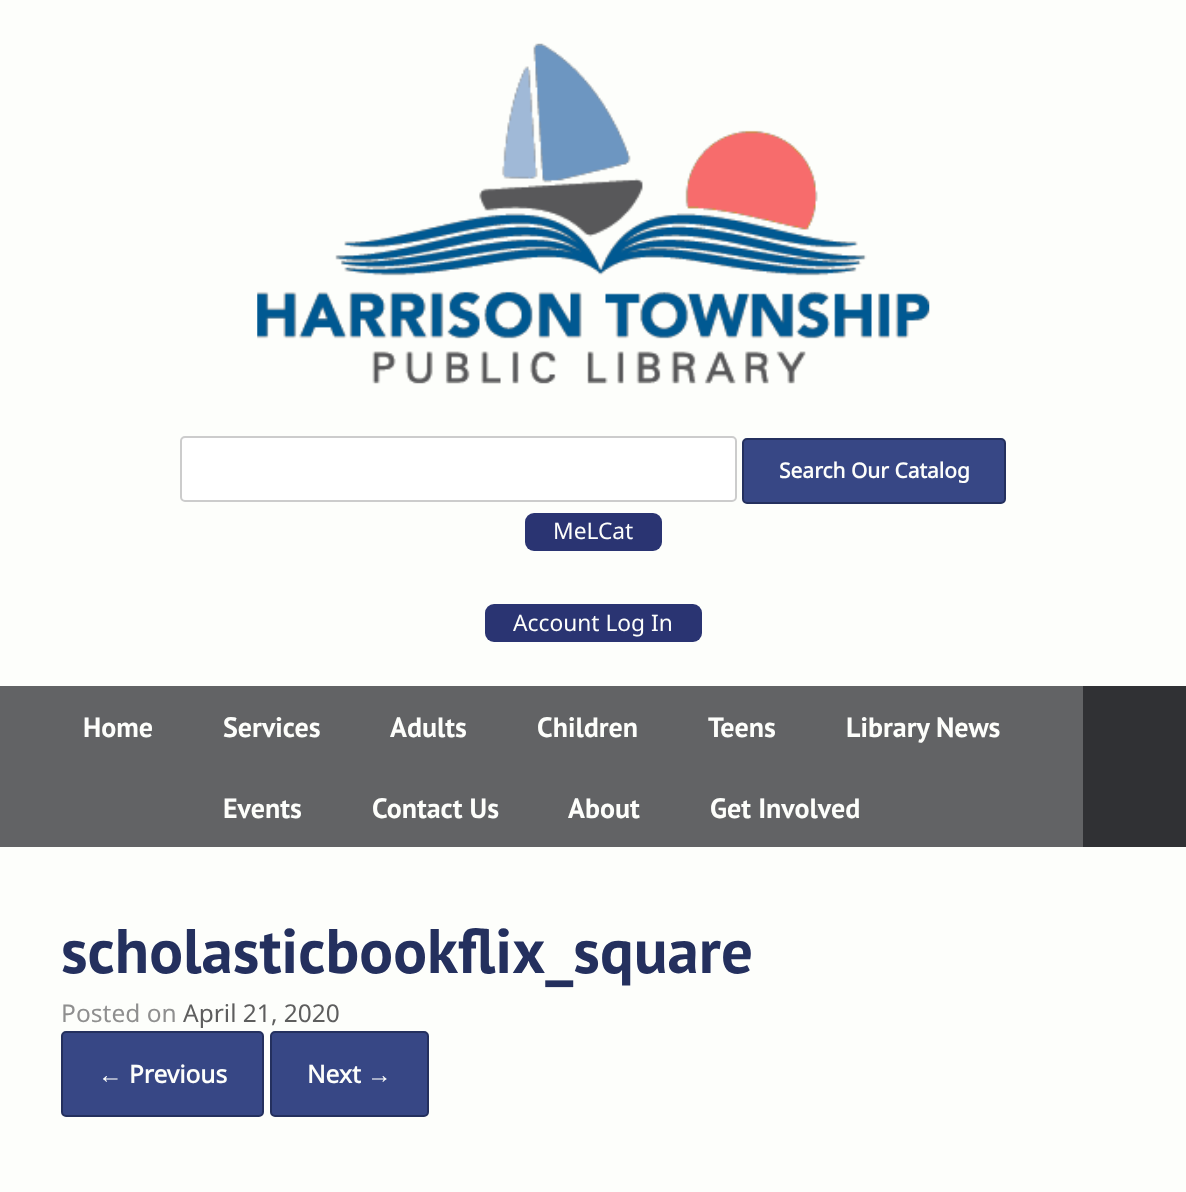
<!DOCTYPE html>
<meta charset="utf-8">
<style>body { margin: 0 } canvas { display: block }</style>
<canvas id="canvas" width="1186" height="1192"></canvas>
<script type="module">
  const canvas = document.getElementById("canvas");
  const ctx = canvas.getContext("2d");
  ctx.miterLimit = 4;
  ctx.fontKerning = "normal";
  async function loadImage(src) {
    const img = new Image();
    img.src = src;
    await img.decode();
    return img;
  }

  ctx.fillStyle = "#fdfefb";
  ctx.fillRect(0, 0, 1186, 1192);
  ctx.drawImage(await loadImage("img1.png"), 257, 43, 673, 341);
  ctx.fillStyle = "#ffffff";
  ctx.beginPath();
  ctx.roundRect(181, 437, 555, 64, 4);
  ctx.fill();
  ctx.strokeStyle = "#cccccc";
  ctx.lineWidth = 2;
  ctx.stroke();
  ctx.fillStyle = "#374785";
  ctx.beginPath();
  ctx.roundRect(743, 439, 262, 64, 4);
  ctx.fill();
  ctx.strokeStyle = "#24305e";
  ctx.stroke();
  ctx.font = "bold 21px Noto Sans";
  ctx.fillStyle = "#fdfefb";
  ctx.fillText("Search Our Catalog", 779, 478);
  ctx.fillStyle = "#2a3472";
  ctx.beginPath();
  ctx.roundRect(525, 513, 137, 38, 9);
  ctx.fill();
  ctx.font = "22.75px Noto Sans";
  ctx.fillStyle = "#fdfefb";
  ctx.fillText("MeLCat", 553, 539);
  ctx.fillStyle = "#2a3472";
  ctx.beginPath();
  ctx.roundRect(485, 604, 217, 38, 9);
  ctx.fill();
  ctx.fillStyle = "#fdfefb";
  ctx.fillText("Account Log In", 513, 631);
  ctx.fillStyle = "#626365";
  ctx.fillRect(0, 686, 1083, 161);
  ctx.font = "bold 28px PT Sans";
  ctx.fillStyle = "#fdfefb";
  ctx.fillText("Home", 83, 737);
  ctx.fillText("Services", 223, 737);
  ctx.fillText("Adults", 390, 737);
  ctx.fillText("Children", 537, 737);
  ctx.fillText("Teens", 708, 737);
  ctx.fillText("Library News", 846, 737);
  ctx.fillText("Events", 223, 818);
  ctx.fillText("Contact Us", 372, 818);
  ctx.fillText("About", 568, 818);
  ctx.fillText("Get Involved", 710, 818);
  ctx.fillStyle = "#303134";
  ctx.fillRect(1083, 686, 103, 161);
  ctx.font = "bold 63px PT Sans";
  ctx.fillStyle = "#24305e";
  ctx.fillText("scholasticbookflix_square", 61, 973);
  ctx.font = "24.5px 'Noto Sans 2'";
  ctx.fillStyle = "#8f8f8f";
  ctx.fillText("P", 61, 1022);
  ctx.font = "24.5px Noto Sans";
  ctx.fillText("osted on", 76, 1022);
  ctx.fillStyle = "#5e5e5e";
  ctx.fillText("April 21, 2020", 183, 1022);
  ctx.fillStyle = "#374785";
  ctx.beginPath();
  ctx.roundRect(62, 1032, 201, 84, 4);
  ctx.fill();
  ctx.stroke();
  ctx.font = "bold 24.5px Liberation Serif";
  ctx.fillStyle = "#fdfefb";
  ctx.fillText("←", 98, 1083);
  ctx.font = "bold 24.5px Noto Sans";
  ctx.fillText("Previous", 129, 1083);
  ctx.fillStyle = "#374785";
  ctx.beginPath();
  ctx.roundRect(271, 1032, 157, 84, 4);
  ctx.fill();
  ctx.stroke();
  ctx.fillStyle = "#fdfefb";
  ctx.fillText("Next", 307, 1083);
  ctx.font = "bold 24.5px Liberation Serif";
  ctx.fillText("→", 367, 1083);
</script>
